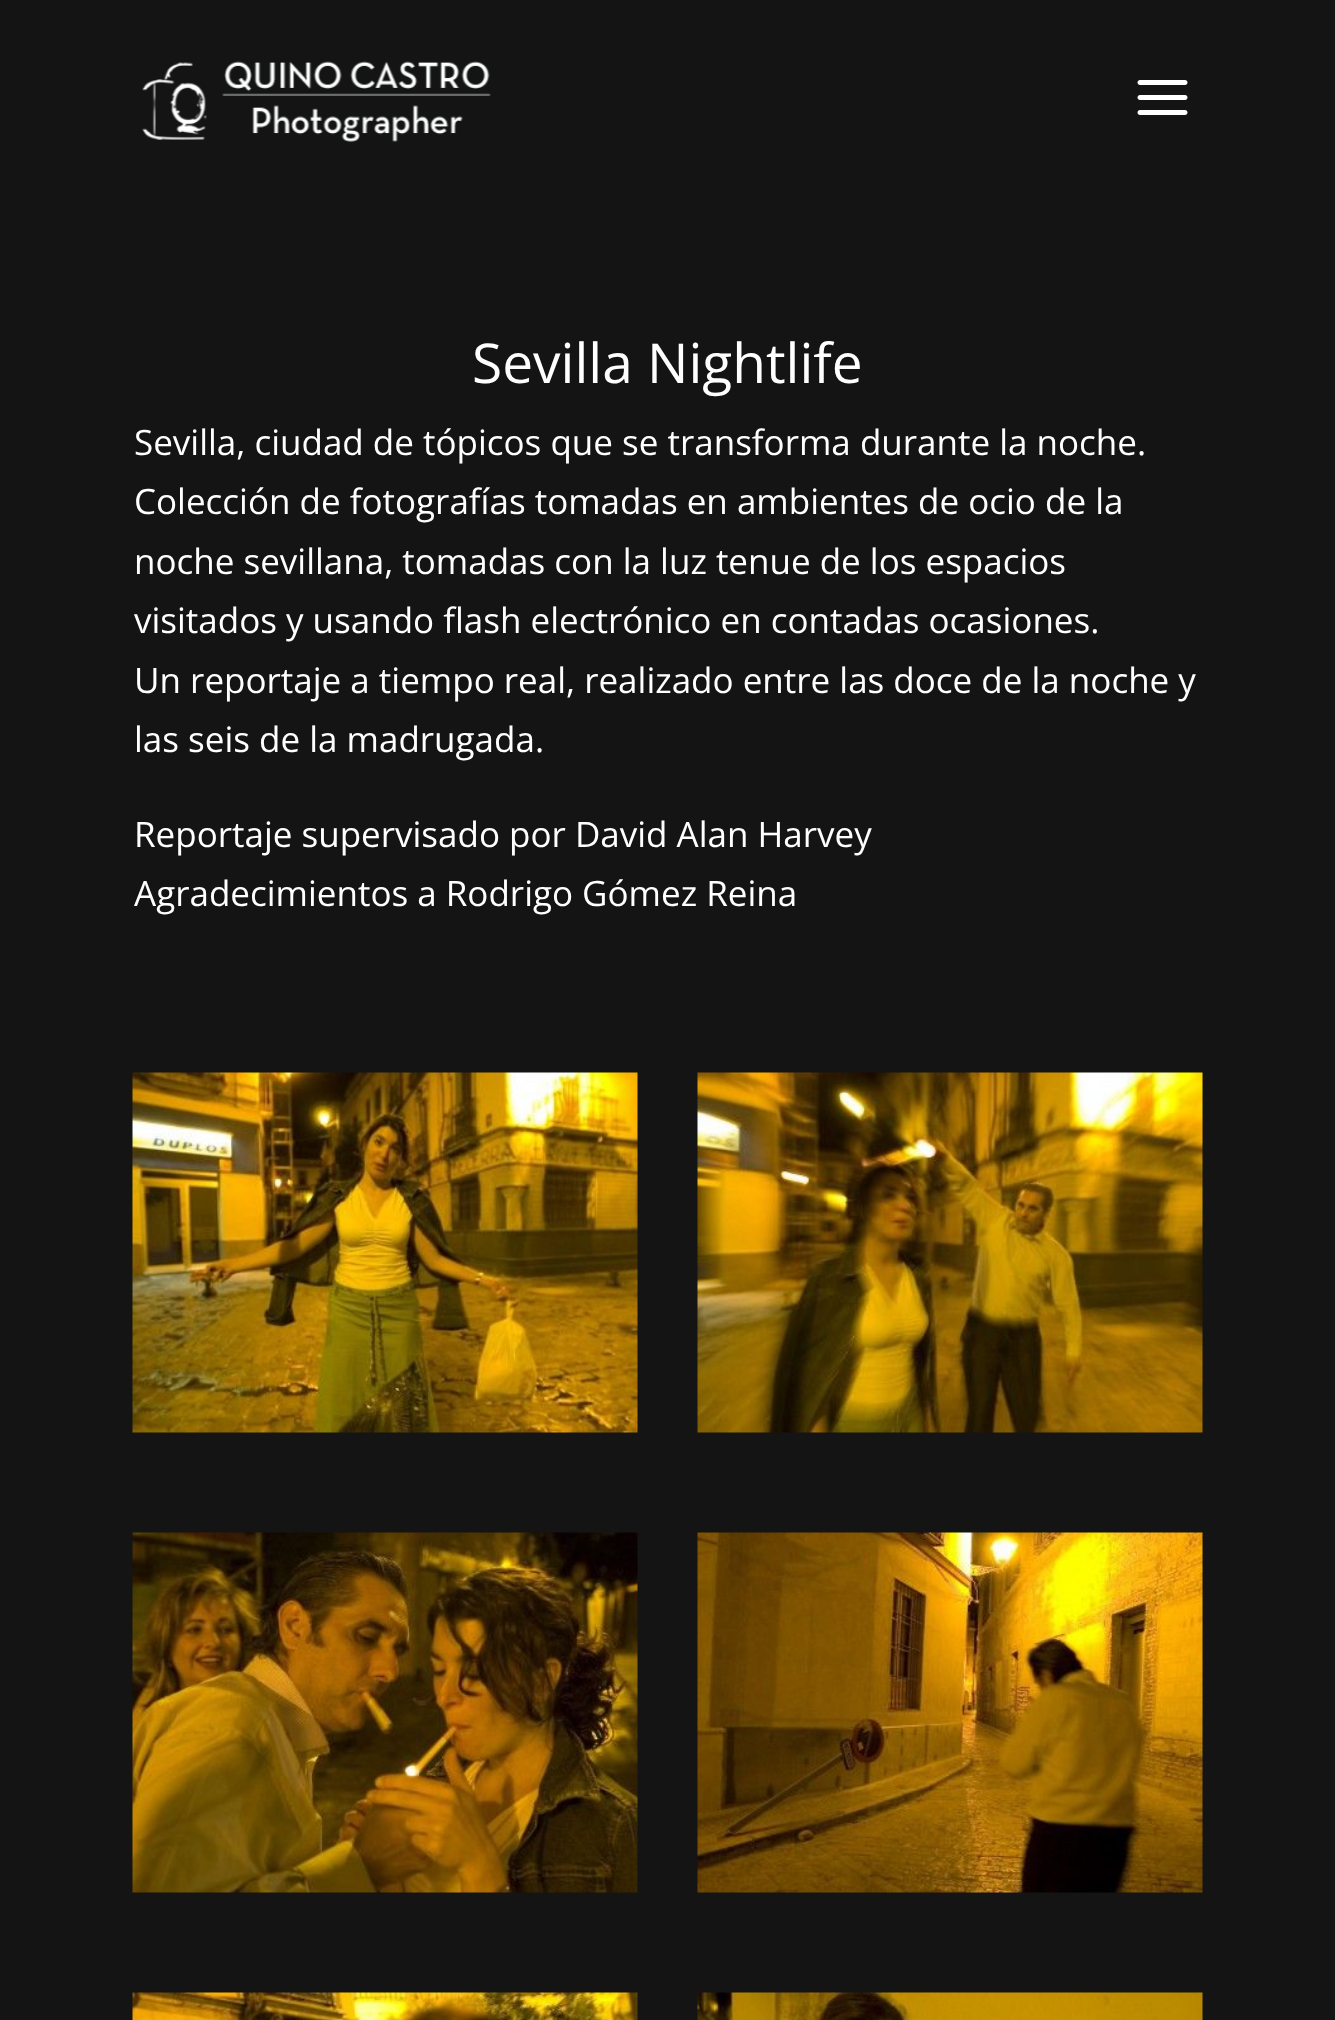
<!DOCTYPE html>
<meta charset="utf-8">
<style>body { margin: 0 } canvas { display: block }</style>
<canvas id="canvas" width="1335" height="2020"></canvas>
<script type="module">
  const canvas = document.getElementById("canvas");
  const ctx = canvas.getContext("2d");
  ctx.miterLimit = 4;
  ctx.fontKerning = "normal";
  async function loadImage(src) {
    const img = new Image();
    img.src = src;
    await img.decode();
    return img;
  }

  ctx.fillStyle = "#141414";
  ctx.fillRect(0, 0, 1335, 2020);
  ctx.drawImage(await loadImage("img1.png"), 142, 61, 349, 81);
  ctx.drawImage(await loadImage("img2.png"), 1137, 80, 51, 35);
  ctx.font = "55px Open Sans";
  ctx.fillStyle = "#ffffff";
  ctx.fillText("Sevilla Nightlife", 472, 383);
  ctx.font = "35px Open Sans";
  ctx.fillText("Sevilla, ciudad de tópicos que se transforma durante la noche.", 134, 455);
  ctx.fillText("Colección de fotografías tomadas en ambientes de ocio de la", 134, 514);
  ctx.fillText("noche sevillana, tomadas con la luz tenue de los espacios", 134, 574);
  ctx.fillText("visitados y usando flash electrónico en contadas ocasiones.", 134, 633);
  ctx.fillText("Un reportaje a tiempo real, realizado entre las doce de la noche y", 134, 693);
  ctx.fillText("las seis de la madrugada.", 134, 752);
  ctx.fillText("Reportaje supervisado por David Alan Harvey", 134, 847);
  ctx.fillText("Agradecimientos a Rodrigo Gómez Reina", 134, 906);
  ctx.drawImage(await loadImage("img3.png"), 132, 1072, 506, 361);
  ctx.drawImage(await loadImage("img4.png"), 697, 1072, 506, 361);
  ctx.drawImage(await loadImage("img5.png"), 132, 1532, 506, 361);
  ctx.drawImage(await loadImage("img6.png"), 697, 1532, 506, 361);
  ctx.drawImage(await loadImage("img7.png"), 132, 1992, 506, 28);
  ctx.drawImage(await loadImage("img8.png"), 697, 1992, 506, 28);
</script>
